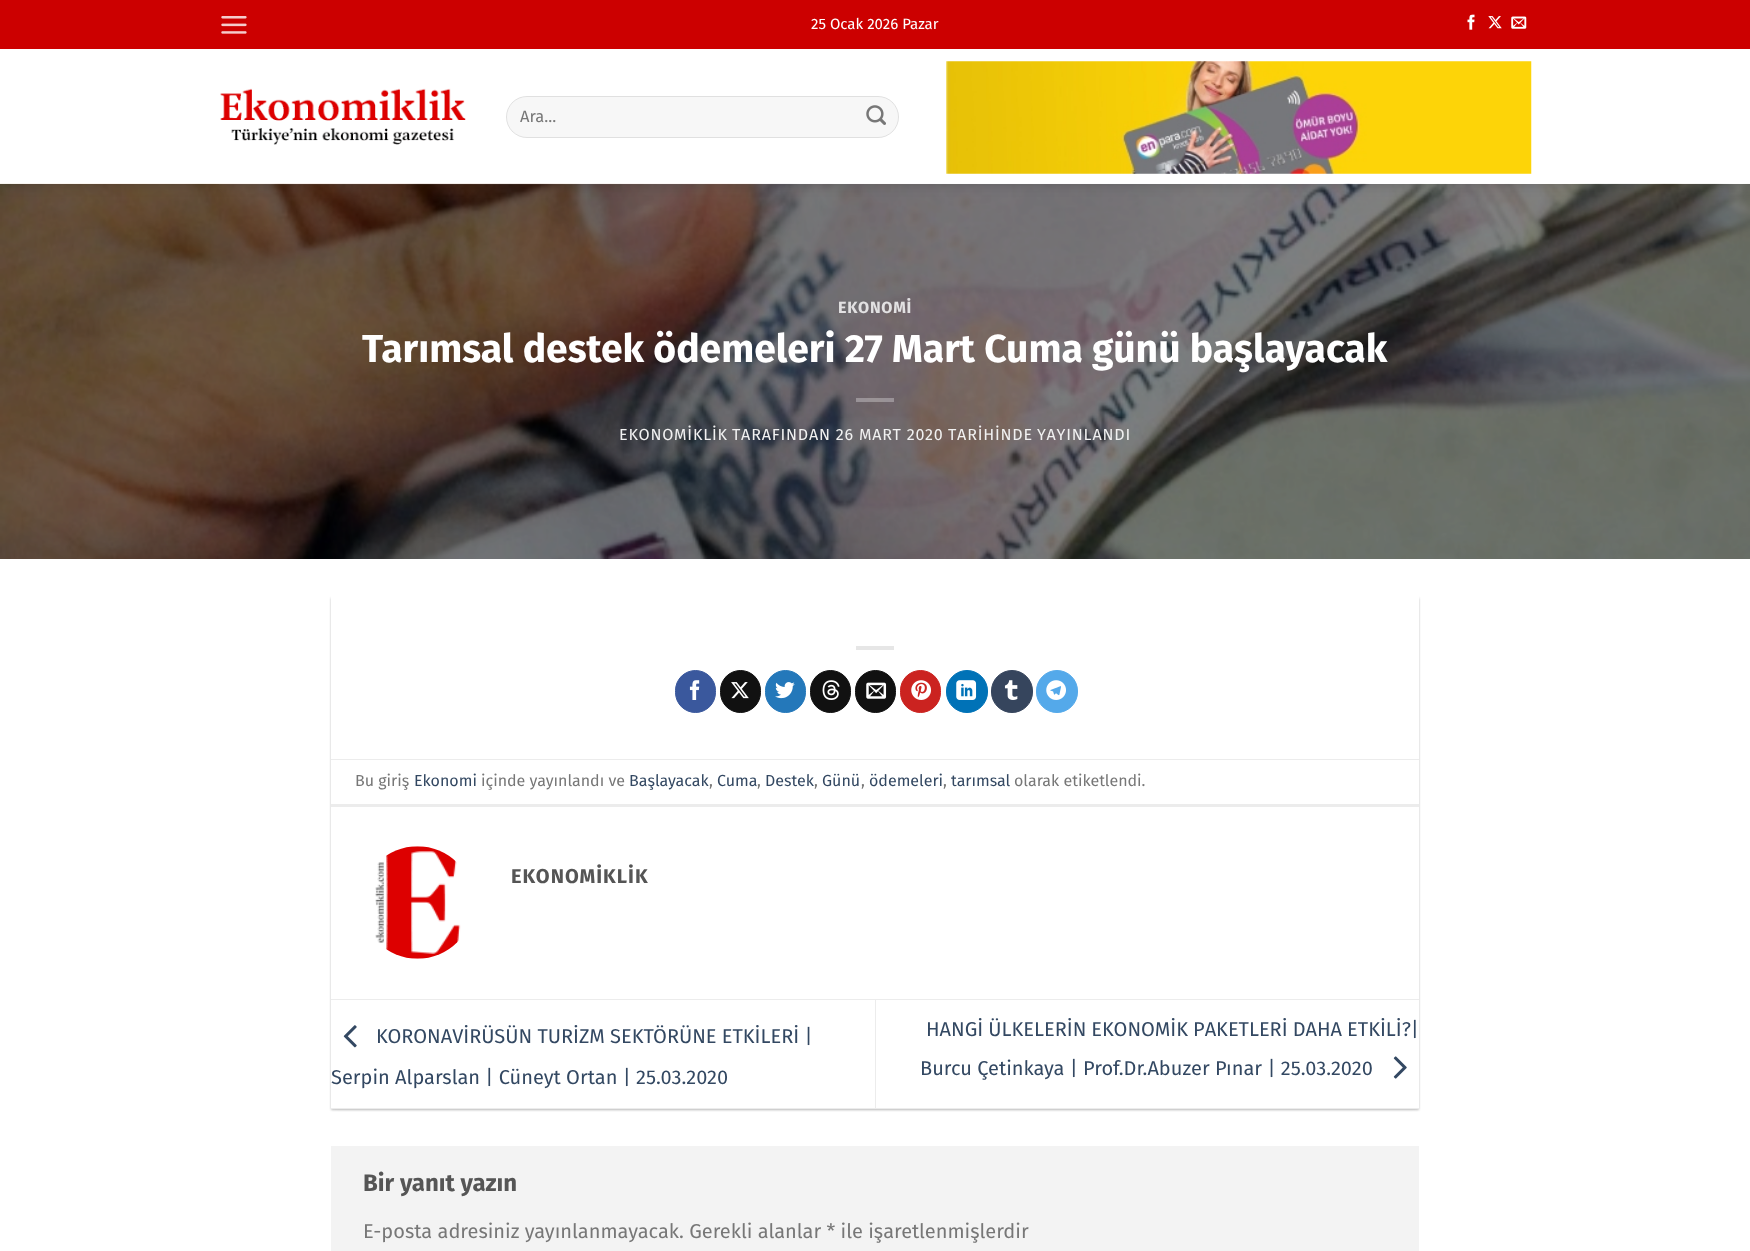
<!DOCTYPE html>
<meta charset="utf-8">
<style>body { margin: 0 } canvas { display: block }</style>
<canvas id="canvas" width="1750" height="1251"></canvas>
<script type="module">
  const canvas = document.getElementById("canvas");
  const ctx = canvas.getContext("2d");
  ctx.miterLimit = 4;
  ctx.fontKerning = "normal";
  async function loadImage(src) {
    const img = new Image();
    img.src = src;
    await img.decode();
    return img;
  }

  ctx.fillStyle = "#ffffff";
  ctx.fillRect(0, 0, 1750, 1251);
  ctx.drawImage(await loadImage("img8.png"), 0, 183, 1750, 376);
  ctx.save();
  ctx.beginPath();
  ctx.moveTo(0, 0);
  ctx.lineTo(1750, 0);
  ctx.lineTo(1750, 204);
  ctx.lineTo(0, 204);
  ctx.closePath();
  ctx.moveTo(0, 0);
  ctx.lineTo(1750, 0);
  ctx.lineTo(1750, 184);
  ctx.lineTo(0, 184);
  ctx.closePath();
  ctx.clip("evenodd");
  ctx.fillStyle = "rgba(0, 0, 0, 0.15)";
  ctx.filter = "blur(6px)";
  ctx.beginPath();
  ctx.rect(1, 1, 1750, 184);
  ctx.fill();
  ctx.filter = "none";
  ctx.restore();
  ctx.fillStyle = "#cc0000";
  ctx.fillRect(0, 0, 1750, 49);
  ctx.drawImage(await loadImage("img1.png"), 221, 16, 26, 18);
  ctx.font = "15px Fira Sans";
  ctx.fillStyle = "#ffffff";
  ctx.fillText("25 Ocak 2026 Pazar", 811, 29);
  ctx.drawImage(await loadImage("img2.png"), 1467, 14, 8, 16);
  ctx.drawImage(await loadImage("img3.png"), 1488, 16, 14, 13);
  ctx.drawImage(await loadImage("img4.png"), 1511, 16, 16, 13);
  ctx.drawImage(await loadImage("img5.png"), 220, 88, 246, 57);
  ctx.fillStyle = "#f7f7f7";
  ctx.beginPath();
  ctx.roundRect(506, 96, 393, 42, 21);
  ctx.fill();
  ctx.beginPath();
  ctx.roundRect(506.5, 96.5, 392, 41, 20.5);
  ctx.strokeStyle = "rgba(0, 0, 0, 0.09)";
  ctx.stroke();
  ctx.font = "16.5px Fira Sans";
  ctx.fillStyle = "#777777";
  ctx.fillText("Ara...", 520, 122);
  ctx.drawImage(await loadImage("img6.png"), 866, 105, 20, 20);
  ctx.drawImage(await loadImage("img7.png"), 946, 61, 586, 113);
  ctx.fillStyle = "rgba(119, 119, 119, 0.1)";
  ctx.fillRect(219, 184, 1201, 1);
  ctx.fillStyle = "rgba(255, 255, 255, 0.9)";
  ctx.fillRect(0, 183, 1750, 1);
  ctx.letterSpacing = "0.8px";
  ctx.font = "bold 16.1px Fira Sans";
  ctx.fillStyle = "#e2e1e2";
  ctx.fillText("EKONOMİ", 838, 313);
  ctx.letterSpacing = "0px";
  ctx.font = "bold 39.1px Fira Sans";
  ctx.fillStyle = "#ffffff";
  ctx.fillText("Tarımsal destek ödemeleri 27 Mart Cuma günü başlayacak", 362, 362);
  ctx.fillStyle = "rgba(255, 255, 255, 0.3)";
  ctx.fillRect(856, 398, 38, 4);
  ctx.letterSpacing = "0.8px";
  ctx.font = "16.1px Fira Sans";
  ctx.fillStyle = "#f1f1f1";
  ctx.fillText("EKONOMİKLİK", 619, 440);
  ctx.fillText("TARAFINDAN 26 MART 2020", 732, 440);
  ctx.wordSpacing = "-1px";
  ctx.fillText("TARİHİNDE YAYINLANDI", 948, 440);
  ctx.fillStyle = "rgba(0, 0, 0, 0.24)";
  ctx.filter = "blur(1px)";
  ctx.beginPath();
  ctx.rect(331, 598, 1088, 512);
  ctx.fill();
  ctx.filter = "none";
  ctx.fillStyle = "rgba(0, 0, 0, 0.12)";
  ctx.filter = "blur(2px)";
  ctx.beginPath();
  ctx.rect(334, 600, 1082, 508);
  ctx.fill();
  ctx.filter = "none";
  ctx.fillStyle = "#ffffff";
  ctx.fillRect(331, 596, 1088, 512);
  ctx.fillStyle = "#e6e6e6";
  ctx.fillRect(856, 646, 38, 4);
  ctx.fillStyle = "#3a589d";
  ctx.beginPath();
  ctx.roundRect(675.5, 670.5, 40, 42, 20);
  ctx.fill();
  ctx.strokeStyle = "#3a589d";
  ctx.stroke();
  ctx.drawImage(await loadImage("img9.png"), 689, 680, 11, 20);
  ctx.fillStyle = "#111111";
  ctx.beginPath();
  ctx.roundRect(720.5, 670.5, 40, 42, 20);
  ctx.fill();
  ctx.strokeStyle = "#111111";
  ctx.stroke();
  ctx.drawImage(await loadImage("img10.png"), 731, 682, 18, 17);
  ctx.fillStyle = "#2478ba";
  ctx.beginPath();
  ctx.roundRect(765.5, 670.5, 40, 42, 20);
  ctx.fill();
  ctx.strokeStyle = "#2478ba";
  ctx.stroke();
  ctx.drawImage(await loadImage("img11.png"), 775, 682, 20, 17);
  ctx.fillStyle = "#111111";
  ctx.beginPath();
  ctx.roundRect(810.5, 670.5, 40, 42, 20);
  ctx.fill();
  ctx.strokeStyle = "#111111";
  ctx.stroke();
  ctx.drawImage(await loadImage("img12.png"), 822, 680, 18, 20);
  ctx.beginPath();
  ctx.roundRect(855.5, 670.5, 40, 42, 20);
  ctx.fill();
  ctx.stroke();
  ctx.drawImage(await loadImage("img13.png"), 866, 682, 21, 17);
  ctx.fillStyle = "#cb2320";
  ctx.beginPath();
  ctx.roundRect(900.5, 670.5, 40, 42, 20);
  ctx.fill();
  ctx.strokeStyle = "#cb2320";
  ctx.stroke();
  ctx.drawImage(await loadImage("img14.png"), 911, 680, 20, 20);
  ctx.fillStyle = "#0072b7";
  ctx.beginPath();
  ctx.roundRect(946.5, 670.5, 41, 42, 20.5);
  ctx.fill();
  ctx.strokeStyle = "#0072b7";
  ctx.stroke();
  ctx.drawImage(await loadImage("img15.png"), 956, 680, 21, 20);
  ctx.fillStyle = "#36455d";
  ctx.beginPath();
  ctx.roundRect(991.5, 670.5, 41, 42, 20.5);
  ctx.fill();
  ctx.strokeStyle = "#36455d";
  ctx.stroke();
  ctx.drawImage(await loadImage("img16.png"), 1004, 680, 14, 20);
  ctx.fillStyle = "#54a9ea";
  ctx.beginPath();
  ctx.roundRect(1036.5, 670.5, 41, 42, 20.5);
  ctx.fill();
  ctx.strokeStyle = "#54a9ea";
  ctx.stroke();
  ctx.drawImage(await loadImage("img17.png"), 1046, 680, 20, 20);
  ctx.fillStyle = "#ececec";
  ctx.fillRect(331, 759, 1088, 1);
  ctx.fillRect(331, 804, 1088, 3);
  ctx.letterSpacing = "0px";
  ctx.wordSpacing = "0px";
  ctx.font = "16px Fira Sans";
  ctx.fillStyle = "#777777";
  ctx.fillText("Bu giriş", 355, 786);
  ctx.fillStyle = "#334862";
  ctx.fillText("Ekonomi", 414, 786);
  ctx.fillStyle = "#777777";
  ctx.fillText("içinde yayınlandı ve", 481, 786);
  ctx.fillStyle = "#334862";
  ctx.fillText("Başlayacak", 629, 786);
  ctx.fillStyle = "#777777";
  ctx.fillText(",", 709, 786);
  ctx.fillStyle = "#334862";
  ctx.fillText("Cuma", 717, 786);
  ctx.fillStyle = "#777777";
  ctx.fillText(",", 757, 786);
  ctx.fillStyle = "#334862";
  ctx.fillText("Destek", 765, 786);
  ctx.fillStyle = "#777777";
  ctx.fillText(",", 814, 786);
  ctx.fillStyle = "#334862";
  ctx.fillText("Günü", 822, 786);
  ctx.fillStyle = "#777777";
  ctx.fillText(",", 861, 786);
  ctx.fillStyle = "#334862";
  ctx.fillText("ödemeleri", 869, 786);
  ctx.fillStyle = "#777777";
  ctx.fillText(",", 943, 786);
  ctx.fillStyle = "#334862";
  ctx.fillText("tarımsal", 951, 786);
  ctx.fillStyle = "#777777";
  ctx.fillText("olarak etiketlendi.", 1014, 786);
  ctx.drawImage(await loadImage("img18.png"), 375, 846, 86, 113);
  ctx.letterSpacing = "1px";
  ctx.font = "bold 20px Fira Sans";
  ctx.fillStyle = "#555555";
  ctx.fillText("EKONOMİKLİK", 511, 883);
  ctx.fillStyle = "#ececec";
  ctx.fillRect(331, 999, 1088, 1);
  ctx.fillRect(331, 1108, 1088, 1);
  ctx.drawImage(await loadImage("img19.png"), 343, 1025, 14, 23);
  ctx.letterSpacing = "0px";
  ctx.font = "20px Fira Sans";
  ctx.fillStyle = "#334862";
  ctx.fillText("KORONAVİRÜSÜN TURİZM SEKTÖRÜNE ETKİLERİ |", 376, 1043);
  ctx.fillText("Serpin Alparslan | Cüneyt Ortan | 25.03.2020", 331, 1084);
  ctx.fillStyle = "#ececec";
  ctx.fillRect(875, 1000, 1, 108);
  ctx.wordSpacing = "-0.25px";
  ctx.fillStyle = "#334862";
  ctx.fillText("HANGİ ÜLKELERİN EKONOMİK PAKETLERİ DAHA ETKİLİ?|", 926, 1036);
  ctx.wordSpacing = "0px";
  ctx.fillText("Burcu Çetinkaya | Prof.Dr.Abuzer Pınar | 25.03.2020", 920, 1075);
  ctx.drawImage(await loadImage("img20.png"), 1393, 1056, 14, 23);
  ctx.fillStyle = "#f3f3f3";
  ctx.fillRect(331, 1146, 1088, 105);
  ctx.font = "bold 24px Fira Sans";
  ctx.fillStyle = "#555555";
  ctx.fillText("Bir yanıt yazın", 363, 1191);
  ctx.font = "20px Fira Sans";
  ctx.fillStyle = "#777777";
  ctx.fillText("E-posta adresiniz yayınlanmayacak. Gerekli alanlar * ile işaretlenmişlerdir", 363, 1238);
</script>
